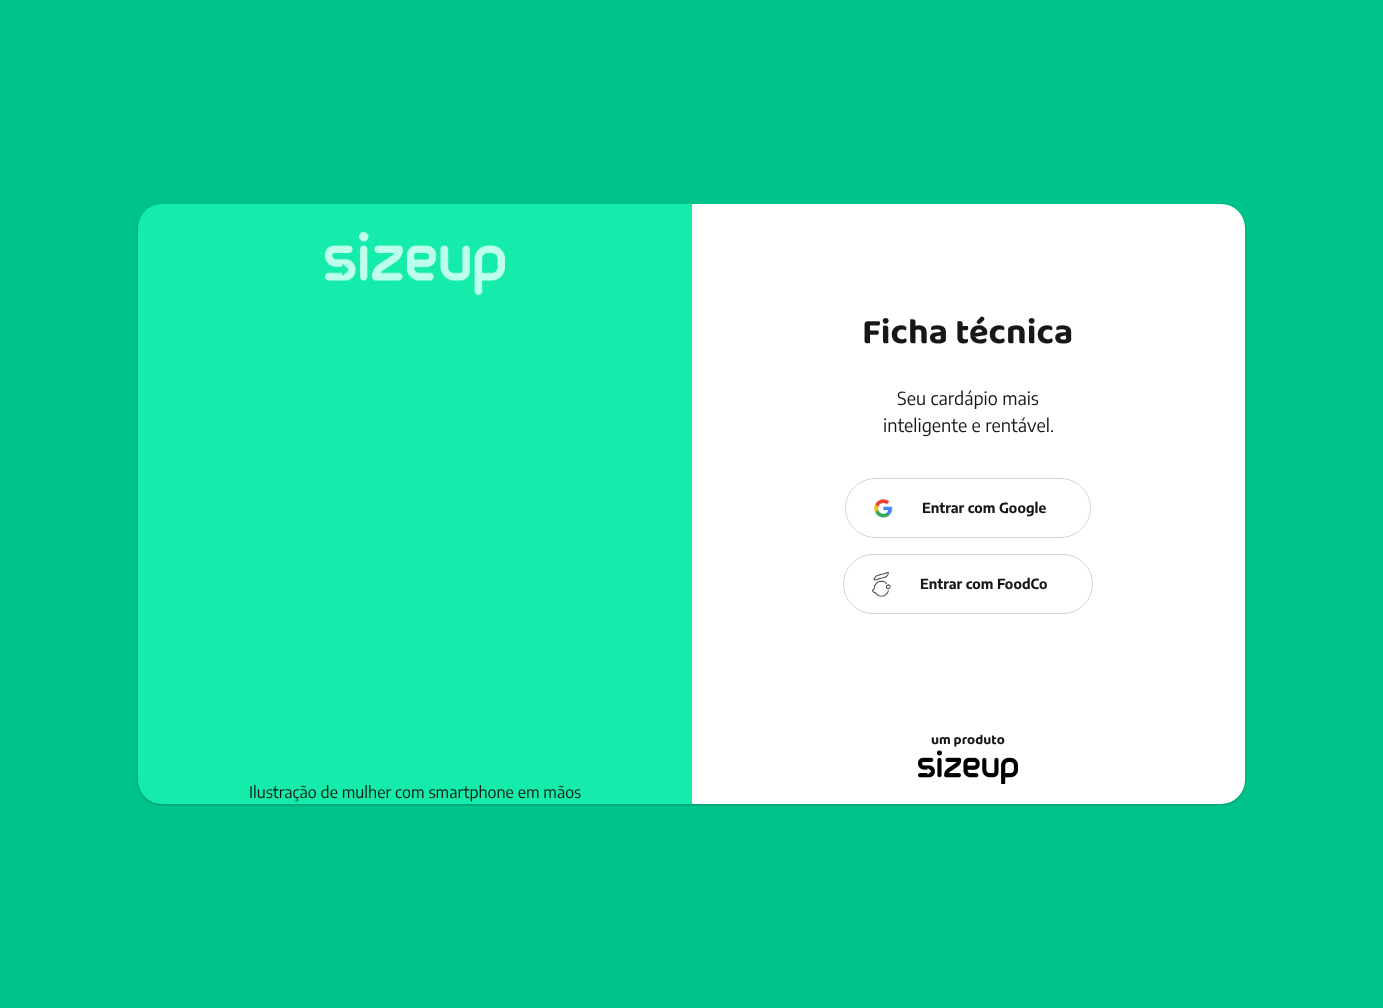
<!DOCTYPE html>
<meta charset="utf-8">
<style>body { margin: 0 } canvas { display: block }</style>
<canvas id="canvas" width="1383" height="1008"></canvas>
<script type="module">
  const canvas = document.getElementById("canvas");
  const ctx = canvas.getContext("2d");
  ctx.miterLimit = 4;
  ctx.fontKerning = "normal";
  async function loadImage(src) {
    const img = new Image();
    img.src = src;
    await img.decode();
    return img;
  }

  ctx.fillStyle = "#00c389";
  ctx.fillRect(0, 0, 1383, 1008);
  ctx.fillStyle = "rgba(0, 0, 0, 0.22)";
  ctx.filter = "blur(1px)";
  ctx.beginPath();
  ctx.roundRect(138, 205, 1107, 600, 24);
  ctx.fill();
  ctx.filter = "none";
  ctx.fillStyle = "#ffffff";
  ctx.beginPath();
  ctx.roundRect(692, 204, 553, 600, [0, 24, 24, 0]);
  ctx.fill();
  ctx.font = "bold 36px 'Baloo 2'";
  ctx.fillStyle = "#171717";
  ctx.fillText("Ficha técnica", 862, 343);
  ctx.font = "18px Encode Sans";
  ctx.fillText("Seu cardápio mais", 897, 405);
  ctx.fillText("inteligente e rentável.", 883, 432);
  ctx.beginPath();
  ctx.roundRect(845.5, 478.5, 245, 59, 29.5);
  ctx.strokeStyle = "#d4d4d4";
  ctx.stroke();
  ctx.drawImage(await loadImage("img1.png"), 874, 499, 19, 19);
  ctx.font = "bold 14px Encode Sans";
  ctx.fillText("Entrar com Google", 922, 513);
  ctx.beginPath();
  ctx.roundRect(843.5, 554.5, 249, 59, 29.5);
  ctx.stroke();
  ctx.drawImage(await loadImage("img2.png"), 872, 571, 19, 26);
  ctx.fillText("Entrar com FoodCo", 920, 589);
  ctx.font = "bold 14px 'Baloo 2'";
  ctx.fillText("um produto", 931, 744);
  ctx.drawImage(await loadImage("img3.png"), 918, 750, 100, 34);
  ctx.fillStyle = "#15ecac";
  ctx.beginPath();
  ctx.roundRect(138, 204, 554, 600, [24, 0, 0, 24]);
  ctx.fill();
  ctx.drawImage(await loadImage("img4.png"), 325, 232, 180, 63);
  ctx.font = "16px Encode Sans";
  ctx.fillStyle = "#171717";
  ctx.fillText("Ilustração de mulher com smartphone em mãos", 249, 798);
</script>
